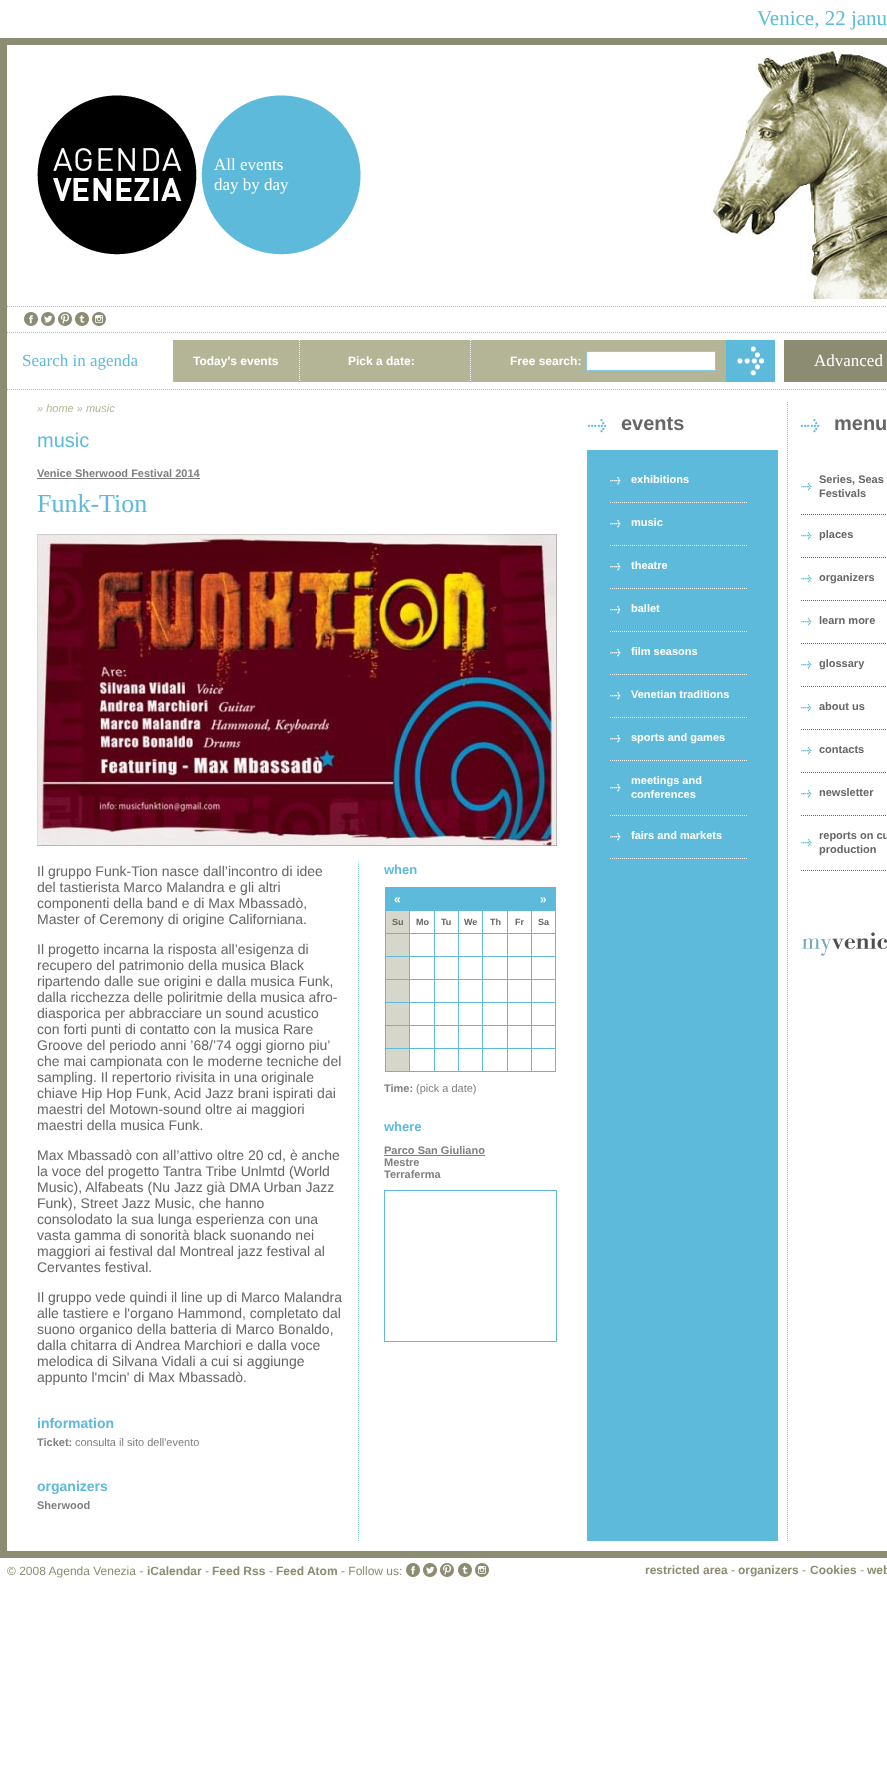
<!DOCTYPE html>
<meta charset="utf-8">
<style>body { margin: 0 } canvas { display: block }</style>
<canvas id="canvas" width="887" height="1768"></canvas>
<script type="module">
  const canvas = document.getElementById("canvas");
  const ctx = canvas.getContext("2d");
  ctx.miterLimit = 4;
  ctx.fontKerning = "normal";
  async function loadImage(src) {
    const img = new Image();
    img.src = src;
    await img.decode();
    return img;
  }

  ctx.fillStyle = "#ffffff";
  ctx.fillRect(0, 0, 887, 1768);
  ctx.font = "21px Liberation Serif";
  ctx.fillStyle = "#5ebadb";
  ctx.fillText("Venice, 22 janu", 757, 25);
  ctx.strokeStyle = "#8c8c73";
  ctx.lineWidth = 7;
  ctx.strokeRect(3.5, 41.5, 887, 1513);
  ctx.drawImage(await loadImage("img1.png"), 37, 95, 160, 160);
  ctx.drawImage(await loadImage("img2.png"), 201, 95, 160, 160);
  ctx.font = "17px Liberation Serif";
  ctx.fillStyle = "#ffffff";
  ctx.fillText("All events", 214, 170);
  ctx.fillText("day by day", 214, 190);
  ctx.drawImage(await loadImage("img3.png"), 712, 50, 175, 249);
  ctx.beginPath();
  ctx.moveTo(7, 306.5);
  ctx.lineTo(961, 306.5);
  ctx.strokeStyle = "#86cbe4";
  ctx.lineWidth = 1;
  ctx.setLineDash([1, 1]);
  ctx.stroke();
  ctx.drawImage(await loadImage("img4.png"), 24, 312, 14, 14);
  ctx.drawImage(await loadImage("img5.png"), 41, 312, 14, 14);
  ctx.drawImage(await loadImage("img6.png"), 58, 312, 14, 14);
  ctx.drawImage(await loadImage("img7.png"), 75, 312, 14, 14);
  ctx.drawImage(await loadImage("img8.png"), 92, 312, 14, 14);
  ctx.beginPath();
  ctx.moveTo(7, 332.5);
  ctx.lineTo(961, 332.5);
  ctx.stroke();
  ctx.beginPath();
  ctx.moveTo(7, 389.5);
  ctx.lineTo(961, 389.5);
  ctx.stroke();
  ctx.fillStyle = "#5ebadb";
  ctx.fillText("Search in agenda", 22, 366);
  ctx.fillStyle = "#b4b496";
  ctx.fillRect(173, 340, 553, 42);
  ctx.font = "bold 12px Liberation Sans";
  ctx.fillStyle = "#ffffff";
  ctx.fillText("Today's events", 193, 365);
  ctx.beginPath();
  ctx.moveTo(299.5, 340);
  ctx.lineTo(299.5, 382);
  ctx.strokeStyle = "#ffffff";
  ctx.stroke();
  ctx.fillText("Pick a date:", 348, 365);
  ctx.beginPath();
  ctx.moveTo(470.5, 340);
  ctx.lineTo(470.5, 382);
  ctx.stroke();
  ctx.fillText("Free search:", 510, 365);
  ctx.beginPath();
  ctx.rect(586.5, 351.5, 129, 19);
  ctx.fill();
  ctx.strokeStyle = "#86cbe4";
  ctx.setLineDash([]);
  ctx.stroke();
  ctx.drawImage(await loadImage("img9.png"), 726, 340, 49, 42);
  ctx.fillStyle = "#8c8c73";
  ctx.fillRect(784, 340, 103, 42);
  ctx.font = "17px Liberation Serif";
  ctx.fillStyle = "#ffffff";
  ctx.fillText("Advanced", 814, 366);
  ctx.font = "italic 11px Liberation Sans";
  ctx.fillStyle = "#b4b496";
  ctx.fillText("» home » music", 37, 412);
  ctx.font = "20px Liberation Sans";
  ctx.fillStyle = "#5ebadb";
  ctx.fillText("music", 37, 447);
  ctx.font = "bold 11px Liberation Sans";
  ctx.fillStyle = "#808080";
  ctx.fillText("Venice Sherwood Festival 2014", 37, 477);
  ctx.fillRect(37, 478, 163, 1);
  ctx.font = "26px Liberation Serif";
  ctx.fillStyle = "#5ebadb";
  ctx.fillText("Funk-Tion", 37, 512);
  ctx.drawImage(await loadImage("img10.png"), 37, 534, 520, 312);
  ctx.font = "14px Liberation Sans";
  ctx.fillStyle = "#666666";
  ctx.fillText("Il gruppo Funk-Tion nasce dall’incontro di idee", 37, 876);
  ctx.fillText("del tastierista Marco Malandra e gli altri", 37, 892);
  ctx.fillText("componenti della band e di Max Mbassadò,", 37, 908);
  ctx.fillText("Master of Ceremony di origine Californiana.", 37, 924);
  ctx.fillText("Il progetto incarna la risposta all’esigenza di", 37, 954);
  ctx.fillText("recupero del patrimonio della musica Black", 37, 970);
  ctx.fillText("ripartendo dalle sue origini e dalla musica Funk,", 37, 986);
  ctx.fillText("dalla ricchezza delle poliritmie della musica afro-", 37, 1002);
  ctx.fillText("diasporica per abbracciare un sound acustico", 37, 1018);
  ctx.fillText("con forti punti di contatto con la musica Rare", 37, 1034);
  ctx.fillText("Groove del periodo anni ’68/’74 oggi giorno piu’", 37, 1050);
  ctx.fillText("che mai campionata con le moderne tecniche del", 37, 1066);
  ctx.fillText("sampling. Il repertorio rivisita in una originale", 37, 1082);
  ctx.fillText("chiave Hip Hop Funk, Acid Jazz brani ispirati dai", 37, 1098);
  ctx.fillText("maestri del Motown-sound oltre ai maggiori", 37, 1114);
  ctx.fillText("maestri della musica Funk.", 37, 1130);
  ctx.fillText("Max Mbassadò con all’attivo oltre 20 cd, è anche", 37, 1160);
  ctx.fillText("la voce del progetto Tantra Tribe Unlmtd (World", 37, 1176);
  ctx.fillText("Music), Alfabeats (Nu Jazz già DMA Urban Jazz", 37, 1192);
  ctx.fillText("Funk), Street Jazz Music, che hanno", 37, 1208);
  ctx.fillText("consolodato la sua lunga esperienza con una", 37, 1224);
  ctx.fillText("vasta gamma di sonorità black suonando nei", 37, 1240);
  ctx.fillText("maggiori ai festival dal Montreal jazz festival al", 37, 1256);
  ctx.fillText("Cervantes festival.", 37, 1272);
  ctx.fillText("Il gruppo vede quindi il line up di Marco Malandra", 37, 1302);
  ctx.fillText("alle tastiere e l'organo Hammond, completato dal", 37, 1318);
  ctx.fillText("suono organico della batteria di Marco Bonaldo,", 37, 1334);
  ctx.fillText("dalla chitarra di Andrea Marchiori e dalla voce", 37, 1350);
  ctx.fillText("melodica di Silvana Vidali a cui si aggiunge", 37, 1366);
  ctx.fillText("appunto l'mcin' di Max Mbassadò.", 37, 1382);
  ctx.font = "bold 14px Liberation Sans";
  ctx.fillStyle = "#5ebadb";
  ctx.fillText("information", 37, 1428);
  ctx.font = "bold 11px Liberation Sans";
  ctx.fillStyle = "#808080";
  ctx.fillText("Ticket:", 37, 1446);
  ctx.font = "11px Liberation Sans";
  ctx.fillText("consulta il sito dell'evento", 75, 1446);
  ctx.font = "bold 14px Liberation Sans";
  ctx.fillStyle = "#5ebadb";
  ctx.fillText("organizers", 37, 1491);
  ctx.font = "bold 11px Liberation Sans";
  ctx.fillStyle = "#808080";
  ctx.fillText("Sherwood", 37, 1509);
  ctx.beginPath();
  ctx.moveTo(358.5, 862);
  ctx.lineTo(358.5, 1541);
  ctx.setLineDash([1, 1]);
  ctx.stroke();
  ctx.font = "bold 13px Liberation Sans";
  ctx.fillStyle = "#5ebadb";
  ctx.fillText("when", 384, 874);
  ctx.fillRect(385, 887, 171, 1);
  ctx.fillRect(385, 887, 1, 185);
  ctx.fillRect(386, 888, 170, 23);
  ctx.font = "bold 12px Liberation Sans";
  ctx.fillStyle = "#ffffff";
  ctx.fillText("«", 394, 903);
  ctx.fillText("»", 540, 903);
  ctx.fillStyle = "#d6d6cb";
  ctx.fillRect(386, 911, 23, 22);
  ctx.fillStyle = "#5ebadb";
  ctx.fillRect(409, 911, 1, 161);
  ctx.fillRect(386, 933, 24, 1);
  ctx.font = "bold 9px Liberation Sans";
  ctx.fillStyle = "#666666";
  ctx.fillText("Su", 392, 925);
  ctx.fillStyle = "#5ebadb";
  ctx.fillRect(434, 911, 1, 161);
  ctx.fillRect(410, 933, 25, 1);
  ctx.fillStyle = "#666666";
  ctx.fillText("Mo", 416, 925);
  ctx.fillStyle = "#5ebadb";
  ctx.fillRect(458, 911, 1, 161);
  ctx.fillRect(435, 933, 24, 1);
  ctx.fillStyle = "#666666";
  ctx.fillText("Tu", 441, 925);
  ctx.fillStyle = "#5ebadb";
  ctx.fillRect(482, 911, 1, 161);
  ctx.fillRect(459, 933, 24, 1);
  ctx.fillStyle = "#666666";
  ctx.fillText("We", 464, 925);
  ctx.fillStyle = "#5ebadb";
  ctx.fillRect(507, 911, 1, 161);
  ctx.fillRect(483, 933, 25, 1);
  ctx.fillStyle = "#666666";
  ctx.fillText("Th", 490, 925);
  ctx.fillStyle = "#5ebadb";
  ctx.fillRect(531, 911, 1, 161);
  ctx.fillRect(508, 933, 24, 1);
  ctx.fillStyle = "#666666";
  ctx.fillText("Fr", 515, 925);
  ctx.fillStyle = "#5ebadb";
  ctx.fillRect(555, 911, 1, 161);
  ctx.fillRect(532, 933, 24, 1);
  ctx.fillStyle = "#666666";
  ctx.fillText("Sa", 538, 925);
  ctx.fillStyle = "#d6d6cb";
  ctx.fillRect(386, 934, 23, 22);
  ctx.fillStyle = "#5ebadb";
  ctx.fillRect(386, 956, 170, 1);
  ctx.fillStyle = "#d6d6cb";
  ctx.fillRect(386, 957, 23, 22);
  ctx.fillStyle = "#5ebadb";
  ctx.fillRect(386, 979, 170, 1);
  ctx.fillStyle = "#d6d6cb";
  ctx.fillRect(386, 980, 23, 22);
  ctx.fillStyle = "#5ebadb";
  ctx.fillRect(386, 1002, 170, 1);
  ctx.fillStyle = "#d6d6cb";
  ctx.fillRect(386, 1003, 23, 22);
  ctx.fillStyle = "#5ebadb";
  ctx.fillRect(386, 1025, 170, 1);
  ctx.fillStyle = "#d6d6cb";
  ctx.fillRect(386, 1026, 23, 22);
  ctx.fillStyle = "#5ebadb";
  ctx.fillRect(386, 1048, 170, 1);
  ctx.fillStyle = "#d6d6cb";
  ctx.fillRect(386, 1049, 23, 22);
  ctx.fillStyle = "#5ebadb";
  ctx.fillRect(386, 1071, 170, 1);
  ctx.font = "bold 11px Liberation Sans";
  ctx.fillStyle = "#808080";
  ctx.fillText("Time:", 384, 1092);
  ctx.font = "11px Liberation Sans";
  ctx.fillText("(pick a date)", 416, 1092);
  ctx.font = "bold 13px Liberation Sans";
  ctx.fillStyle = "#5ebadb";
  ctx.fillText("where", 384, 1131);
  ctx.font = "bold 11px Liberation Sans";
  ctx.fillStyle = "#808080";
  ctx.fillText("Parco San Giuliano", 384, 1154);
  ctx.fillRect(384, 1155, 101, 1);
  ctx.fillText("Mestre", 384, 1166);
  ctx.fillText("Terraferma", 384, 1178);
  ctx.strokeStyle = "#5ebadb";
  ctx.setLineDash([]);
  ctx.strokeRect(384.5, 1190.5, 172, 151);
  ctx.fillStyle = "#5ebadb";
  ctx.fillRect(587, 450, 191, 1091);
  ctx.drawImage(await loadImage("img11.png"), 587, 419, 20, 14);
  ctx.font = "bold 20px Liberation Sans";
  ctx.fillStyle = "#666666";
  ctx.fillText("events", 621, 430);
  ctx.drawImage(await loadImage("img12.png"), 610, 477, 11, 8);
  ctx.beginPath();
  ctx.moveTo(610, 502.5);
  ctx.lineTo(748, 502.5);
  ctx.strokeStyle = "#ffffff";
  ctx.setLineDash([1, 1]);
  ctx.stroke();
  ctx.font = "bold 11px Liberation Sans";
  ctx.fillStyle = "#ffffff";
  ctx.fillText("exhibitions", 631, 483);
  ctx.drawImage(await loadImage("img12.png"), 610, 520, 11, 8);
  ctx.beginPath();
  ctx.moveTo(610, 545.5);
  ctx.lineTo(748, 545.5);
  ctx.stroke();
  ctx.fillText("music", 631, 526);
  ctx.drawImage(await loadImage("img12.png"), 610, 563, 11, 8);
  ctx.beginPath();
  ctx.moveTo(610, 588.5);
  ctx.lineTo(748, 588.5);
  ctx.stroke();
  ctx.fillText("theatre", 631, 569);
  ctx.drawImage(await loadImage("img12.png"), 610, 606, 11, 8);
  ctx.beginPath();
  ctx.moveTo(610, 631.5);
  ctx.lineTo(748, 631.5);
  ctx.stroke();
  ctx.fillText("ballet", 631, 612);
  ctx.drawImage(await loadImage("img12.png"), 610, 649, 11, 8);
  ctx.beginPath();
  ctx.moveTo(610, 674.5);
  ctx.lineTo(748, 674.5);
  ctx.stroke();
  ctx.fillText("film seasons", 631, 655);
  ctx.drawImage(await loadImage("img12.png"), 610, 692, 11, 8);
  ctx.beginPath();
  ctx.moveTo(610, 717.5);
  ctx.lineTo(748, 717.5);
  ctx.stroke();
  ctx.fillText("Venetian traditions", 631, 698);
  ctx.drawImage(await loadImage("img12.png"), 610, 735, 11, 8);
  ctx.beginPath();
  ctx.moveTo(610, 760.5);
  ctx.lineTo(748, 760.5);
  ctx.stroke();
  ctx.fillText("sports and games", 631, 741);
  ctx.drawImage(await loadImage("img12.png"), 610, 784, 11, 8);
  ctx.beginPath();
  ctx.moveTo(610, 815.5);
  ctx.lineTo(748, 815.5);
  ctx.stroke();
  ctx.fillText("meetings and", 631, 784);
  ctx.fillText("conferences", 631, 798);
  ctx.drawImage(await loadImage("img12.png"), 610, 833, 11, 8);
  ctx.beginPath();
  ctx.moveTo(610, 858.5);
  ctx.lineTo(748, 858.5);
  ctx.stroke();
  ctx.fillText("fairs and markets", 631, 839);
  ctx.beginPath();
  ctx.moveTo(787.5, 402);
  ctx.lineTo(787.5, 1541);
  ctx.strokeStyle = "#86cbe4";
  ctx.stroke();
  ctx.drawImage(await loadImage("img11.png"), 800, 419, 20, 14);
  ctx.font = "bold 20px Liberation Sans";
  ctx.fillStyle = "#666666";
  ctx.fillText("menu", 834, 430);
  ctx.drawImage(await loadImage("img13.png"), 801, 483, 11, 8);
  ctx.beginPath();
  ctx.moveTo(801, 514.5);
  ctx.lineTo(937, 514.5);
  ctx.strokeStyle = "#666666";
  ctx.stroke();
  ctx.font = "bold 11px Liberation Sans";
  ctx.fillText("Series, Seas", 819, 483);
  ctx.fillText("Festivals", 819, 497);
  ctx.drawImage(await loadImage("img13.png"), 801, 532, 11, 8);
  ctx.beginPath();
  ctx.moveTo(801, 557.5);
  ctx.lineTo(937, 557.5);
  ctx.stroke();
  ctx.fillText("places", 819, 538);
  ctx.drawImage(await loadImage("img13.png"), 801, 575, 11, 8);
  ctx.beginPath();
  ctx.moveTo(801, 600.5);
  ctx.lineTo(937, 600.5);
  ctx.stroke();
  ctx.fillText("organizers", 819, 581);
  ctx.drawImage(await loadImage("img13.png"), 801, 618, 11, 8);
  ctx.beginPath();
  ctx.moveTo(801, 643.5);
  ctx.lineTo(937, 643.5);
  ctx.stroke();
  ctx.fillText("learn more", 819, 624);
  ctx.drawImage(await loadImage("img13.png"), 801, 661, 11, 8);
  ctx.beginPath();
  ctx.moveTo(801, 686.5);
  ctx.lineTo(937, 686.5);
  ctx.stroke();
  ctx.fillText("glossary", 819, 667);
  ctx.drawImage(await loadImage("img13.png"), 801, 704, 11, 8);
  ctx.beginPath();
  ctx.moveTo(801, 729.5);
  ctx.lineTo(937, 729.5);
  ctx.stroke();
  ctx.fillText("about us", 819, 710);
  ctx.drawImage(await loadImage("img13.png"), 801, 747, 11, 8);
  ctx.beginPath();
  ctx.moveTo(801, 772.5);
  ctx.lineTo(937, 772.5);
  ctx.stroke();
  ctx.fillText("contacts", 819, 753);
  ctx.drawImage(await loadImage("img13.png"), 801, 790, 11, 8);
  ctx.beginPath();
  ctx.moveTo(801, 815.5);
  ctx.lineTo(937, 815.5);
  ctx.stroke();
  ctx.fillText("newsletter", 819, 796);
  ctx.drawImage(await loadImage("img13.png"), 801, 839, 11, 8);
  ctx.beginPath();
  ctx.moveTo(801, 870.5);
  ctx.lineTo(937, 870.5);
  ctx.stroke();
  ctx.fillText("reports on cu", 819, 839);
  ctx.fillText("production", 819, 853);
  ctx.drawImage(await loadImage("img14.png"), 802, 932, 85, 24);
  ctx.font = "12px Liberation Sans";
  ctx.fillStyle = "#8c8c73";
  ctx.fillText("© 2008 Agenda Venezia -", 7, 1575);
  ctx.font = "bold 12px Liberation Sans";
  ctx.fillText("iCalendar", 147, 1575);
  ctx.font = "12px Liberation Sans";
  ctx.fillText("-", 205, 1575);
  ctx.font = "bold 12px Liberation Sans";
  ctx.fillText("Feed Rss", 212, 1575);
  ctx.font = "12px Liberation Sans";
  ctx.fillText("-", 269, 1575);
  ctx.font = "bold 12px Liberation Sans";
  ctx.fillText("Feed Atom", 276, 1575);
  ctx.font = "12px Liberation Sans";
  ctx.fillText("- Follow us:", 341, 1575);
  ctx.drawImage(await loadImage("img4.png"), 406, 1563, 14, 14);
  ctx.drawImage(await loadImage("img5.png"), 423, 1563, 14, 14);
  ctx.drawImage(await loadImage("img6.png"), 440, 1563, 14, 14);
  ctx.drawImage(await loadImage("img7.png"), 458, 1563, 14, 14);
  ctx.drawImage(await loadImage("img8.png"), 475, 1563, 14, 14);
  ctx.font = "bold 12px Liberation Sans";
  ctx.fillText("restricted area", 645, 1574);
  ctx.font = "12px Liberation Sans";
  ctx.fillText("-", 731, 1574);
  ctx.font = "bold 12px Liberation Sans";
  ctx.fillText("organizers", 738, 1574);
  ctx.font = "12px Liberation Sans";
  ctx.fillText("-", 802, 1574);
  ctx.font = "bold 12px Liberation Sans";
  ctx.fillText("Cookies", 810, 1574);
  ctx.font = "12px Liberation Sans";
  ctx.fillText("-", 860, 1574);
  ctx.font = "bold 12px Liberation Sans";
  ctx.fillText("web", 867, 1574);
</script>
